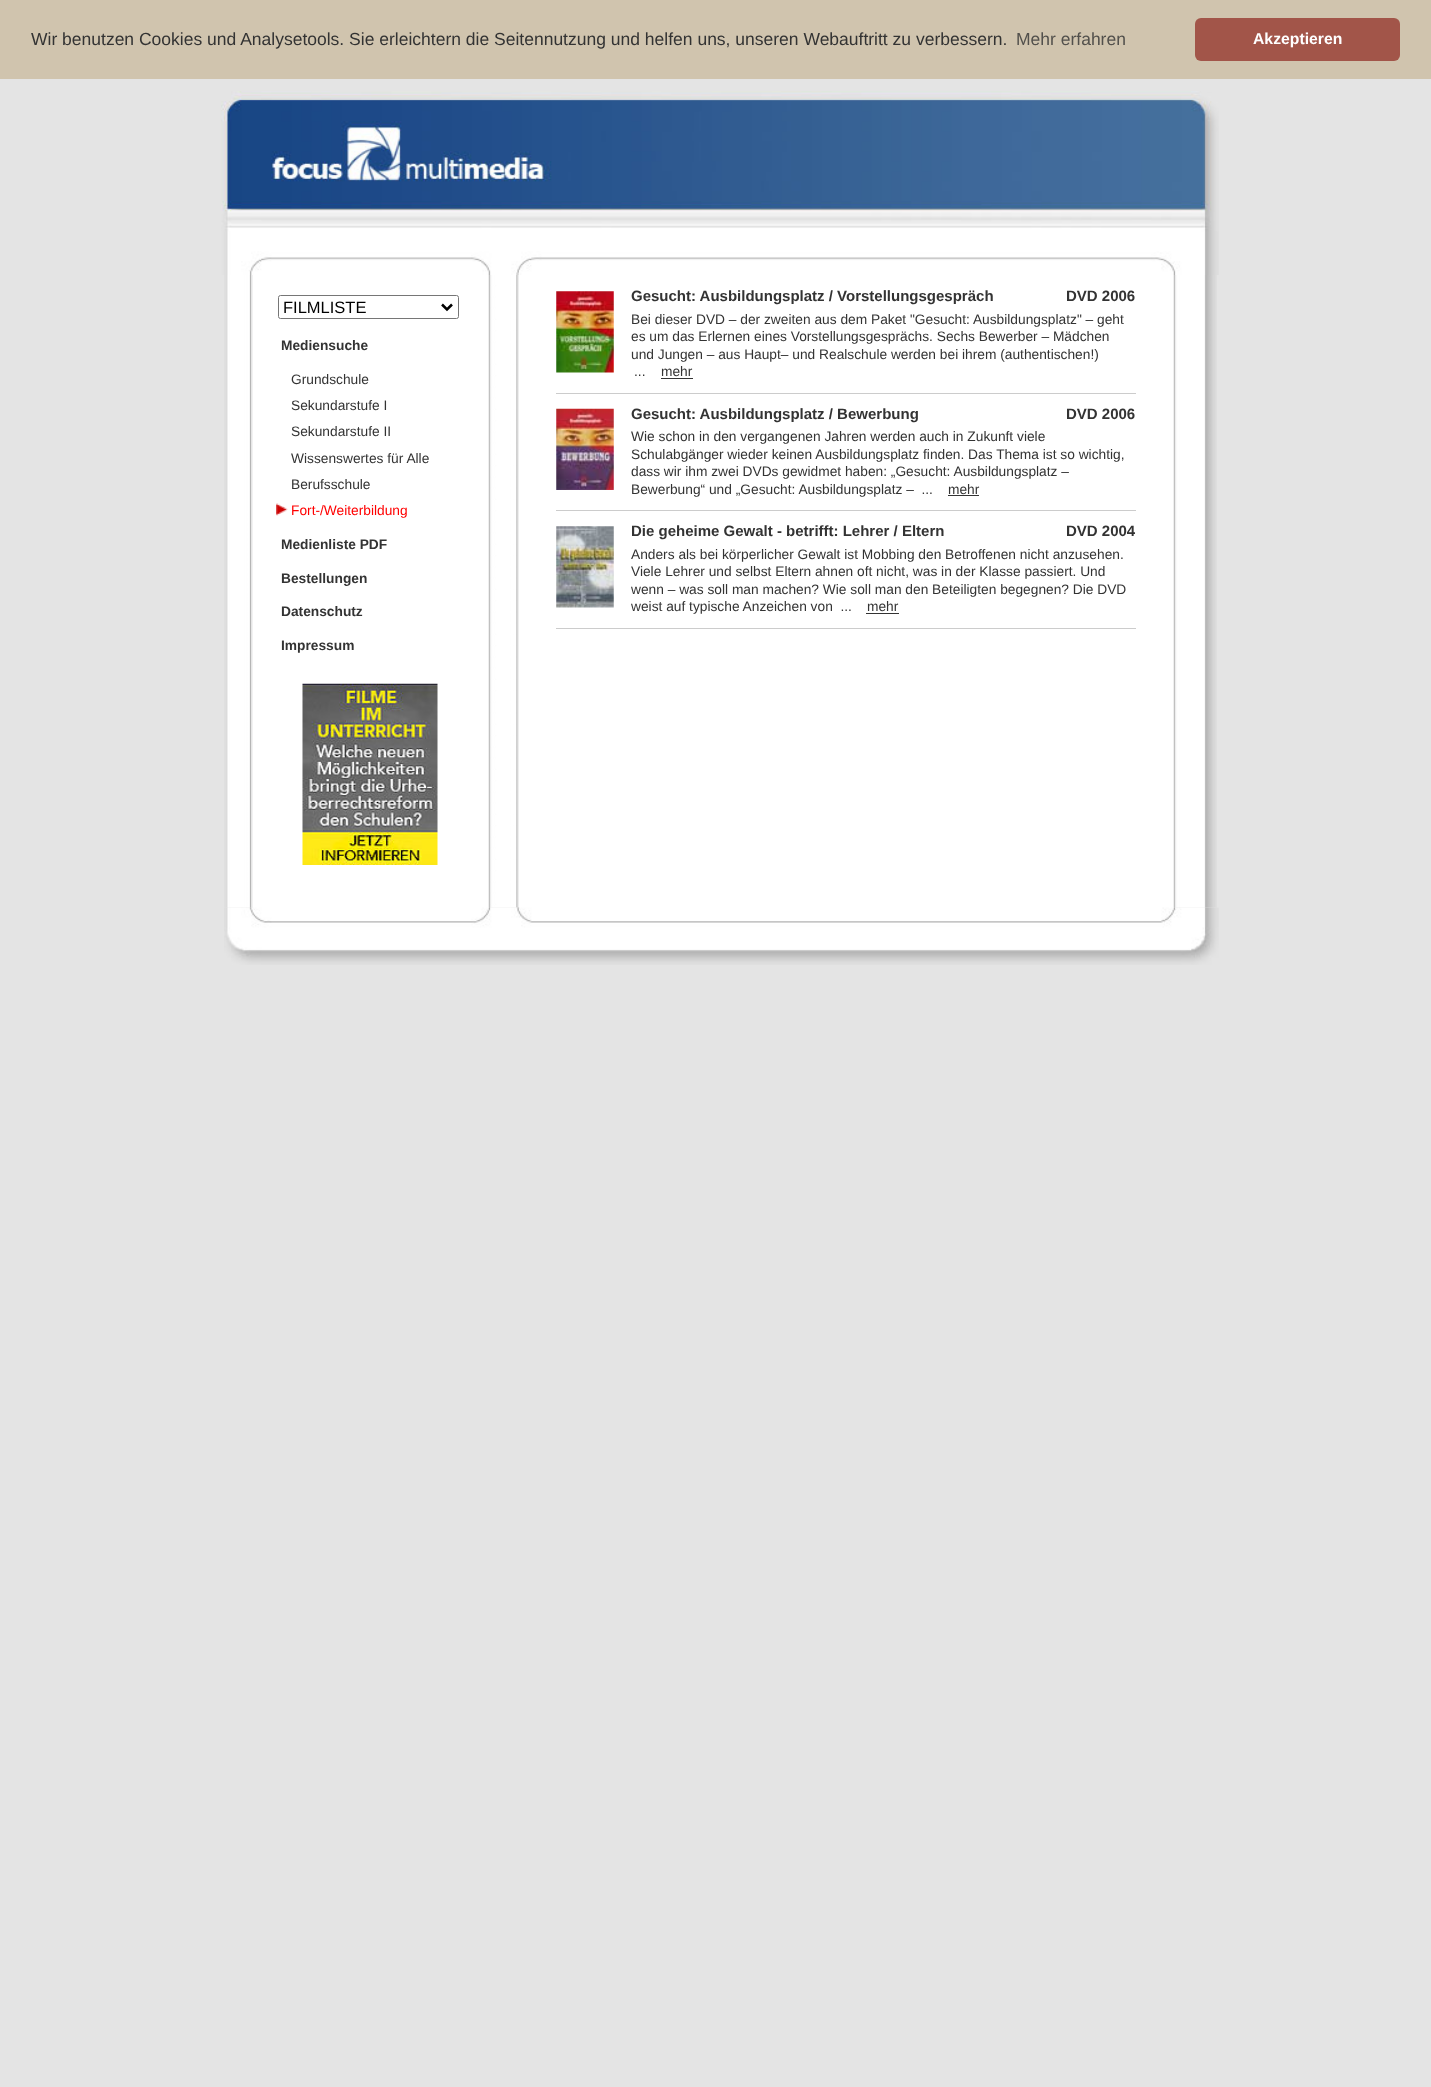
<!DOCTYPE html>
<meta charset="utf-8">
<style>body { margin: 0 } canvas { display: block }</style>
<canvas id="canvas" width="1431" height="2087"></canvas>
<script type="module">
  const canvas = document.getElementById("canvas");
  const ctx = canvas.getContext("2d");
  ctx.miterLimit = 4;
  ctx.fontKerning = "normal";
  async function loadImage(src) {
    const img = new Image();
    img.src = src;
    await img.decode();
    return img;
  }

  ctx.fillStyle = "#e4e4e4";
  ctx.fillRect(0, 0, 1431, 2087);
  ctx.fillStyle = "#d0c4ae";
  ctx.fillRect(0, 0, 1431, 79);
  ctx.font = "17.5px Liberation Sans";
  ctx.fillStyle = "#333333";
  ctx.fillText("Wir benutzen Cookies und Analysetools. Sie erleichtern die Seitennutzung und helfen uns, unseren Webauftritt zu verbessern.", 31, 45);
  ctx.fillStyle = "#52504c";
  ctx.fillText("Mehr erfahren", 1016, 45);
  ctx.fillStyle = "#a25549";
  ctx.beginPath();
  ctx.roundRect(1195, 18, 205, 43, 6);
  ctx.fill();
  ctx.font = "bold 15.75px Liberation Sans";
  ctx.fillStyle = "#ffffff";
  ctx.fillText("Akzeptieren", 1253, 44);
  ctx.drawImage(await loadImage("img1.png"), 221, 91, 998, 184);
  ctx.drawImage(await loadImage("img2.png"), 224, 275, 29, 633);
  ctx.fillRect(253, 275, 236, 633);
  ctx.beginPath();
  ctx.roundRect(278.5, 295.5, 180, 23, 2);
  ctx.strokeStyle = "#767676";
  ctx.stroke();
  ctx.beginPath();
  ctx.moveTo(442, 304.5);
  ctx.lineTo(447, 309.5);
  ctx.lineTo(452, 304.5);
  ctx.strokeStyle = "#000000";
  ctx.lineWidth = 2.5;
  ctx.stroke();
  ctx.font = "16.5px Liberation Sans";
  ctx.fillStyle = "#000000";
  ctx.fillText("FILMLISTE", 283, 313);
  ctx.font = "bold 13.75px Liberation Sans";
  ctx.fillStyle = "#333333";
  ctx.fillText("Mediensuche", 281, 350);
  ctx.font = "13.75px Liberation Sans";
  ctx.fillText("Grundschule", 291, 384);
  ctx.fillText("Sekundarstufe I", 291, 410);
  ctx.fillText("Sekundarstufe II", 291, 436);
  ctx.fillText("Wissenswertes für Alle", 291, 463);
  ctx.fillText("Berufsschule", 291, 489);
  ctx.drawImage(await loadImage("img3.png"), 276, 503, 12, 13);
  ctx.drawImage(await loadImage("img4.png"), 276, 503, 12, 13);
  ctx.fillStyle = "#ff0000";
  ctx.fillText("Fort-/Weiterbildung", 291, 515);
  ctx.font = "bold 13.75px Liberation Sans";
  ctx.fillStyle = "#333333";
  ctx.fillText("Medienliste PDF", 281, 549);
  ctx.fillText("Bestellungen", 281, 583);
  ctx.fillText("Datenschutz", 281, 616);
  ctx.fillText("Impressum", 281, 650);
  ctx.drawImage(await loadImage("img5.png"), 302, 683, 136, 182);
  ctx.drawImage(await loadImage("img6.png"), 488, 275, 31, 633);
  ctx.fillStyle = "#ffffff";
  ctx.fillRect(519, 275, 655, 633);
  ctx.drawImage(await loadImage("img7.png"), 556, 291, 58, 82);
  ctx.font = "bold 15px Liberation Sans";
  ctx.fillStyle = "#333333";
  ctx.fillText("Gesucht: Ausbildungsplatz / Vorstellungsgespräch", 631, 301);
  ctx.fillText("DVD 2006", 1066, 301);
  ctx.font = "13.75px Liberation Sans";
  ctx.fillText("Bei dieser DVD – der zweiten aus dem Paket \"Gesucht: Ausbildungsplatz\" – geht", 631, 324);
  ctx.fillText("es um das Erlernen eines Vorstellungsgesprächs. Sechs Bewerber – Mädchen", 631, 341);
  ctx.fillText("und Jungen – aus Haupt– und Realschule werden bei ihrem (authentischen!)", 631, 359);
  ctx.fillText("...", 634, 376);
  ctx.fillText("mehr", 661, 376);
  ctx.fillRect(661, 378, 32, 1);
  ctx.fillStyle = "#cccccc";
  ctx.fillRect(556, 393, 580, 1);
  ctx.drawImage(await loadImage("img8.png"), 556, 408, 58, 82);
  ctx.font = "bold 15px Liberation Sans";
  ctx.fillStyle = "#333333";
  ctx.fillText("Gesucht: Ausbildungsplatz / Bewerbung", 631, 419);
  ctx.fillText("DVD 2006", 1066, 419);
  ctx.font = "13.75px Liberation Sans";
  ctx.fillText("Wie schon in den vergangenen Jahren werden auch in Zukunft viele", 631, 441);
  ctx.fillText("Schulabgänger wieder keinen Ausbildungsplatz finden. Das Thema ist so wichtig,", 631, 459);
  ctx.fillText("dass wir ihm zwei DVDs gewidmet haben: „Gesucht: Ausbildungsplatz –", 631, 476);
  ctx.fillText("Bewerbung“ und „Gesucht: Ausbildungsplatz –  ...", 631, 494);
  ctx.fillText("mehr", 948, 494);
  ctx.fillRect(948, 495, 31, 1);
  ctx.fillStyle = "#cccccc";
  ctx.fillRect(556, 510, 580, 1);
  ctx.drawImage(await loadImage("img9.png"), 556, 526, 58, 82);
  ctx.font = "bold 15px Liberation Sans";
  ctx.fillStyle = "#333333";
  ctx.fillText("Die geheime Gewalt - betrifft: Lehrer / Eltern", 631, 536);
  ctx.fillText("DVD 2004", 1066, 536);
  ctx.font = "13.75px Liberation Sans";
  ctx.fillText("Anders als bei körperlicher Gewalt ist Mobbing den Betroffenen nicht anzusehen.", 631, 559);
  ctx.fillText("Viele Lehrer und selbst Eltern ahnen oft nicht, was in der Klasse passiert. Und", 631, 576);
  ctx.fillText("wenn – was soll man machen? Wie soll man den Beteiligten begegnen? Die DVD", 631, 594);
  ctx.fillText("weist auf typische Anzeichen von  ...", 631, 611);
  ctx.fillText("mehr", 867, 611);
  ctx.fillRect(866, 613, 33, 1);
  ctx.fillStyle = "#cccccc";
  ctx.fillRect(556, 628, 580, 1);
  ctx.drawImage(await loadImage("img10.png"), 1173, 275, 44, 633);
  ctx.drawImage(await loadImage("img11.png"), 224, 907, 995, 58);
</script>
